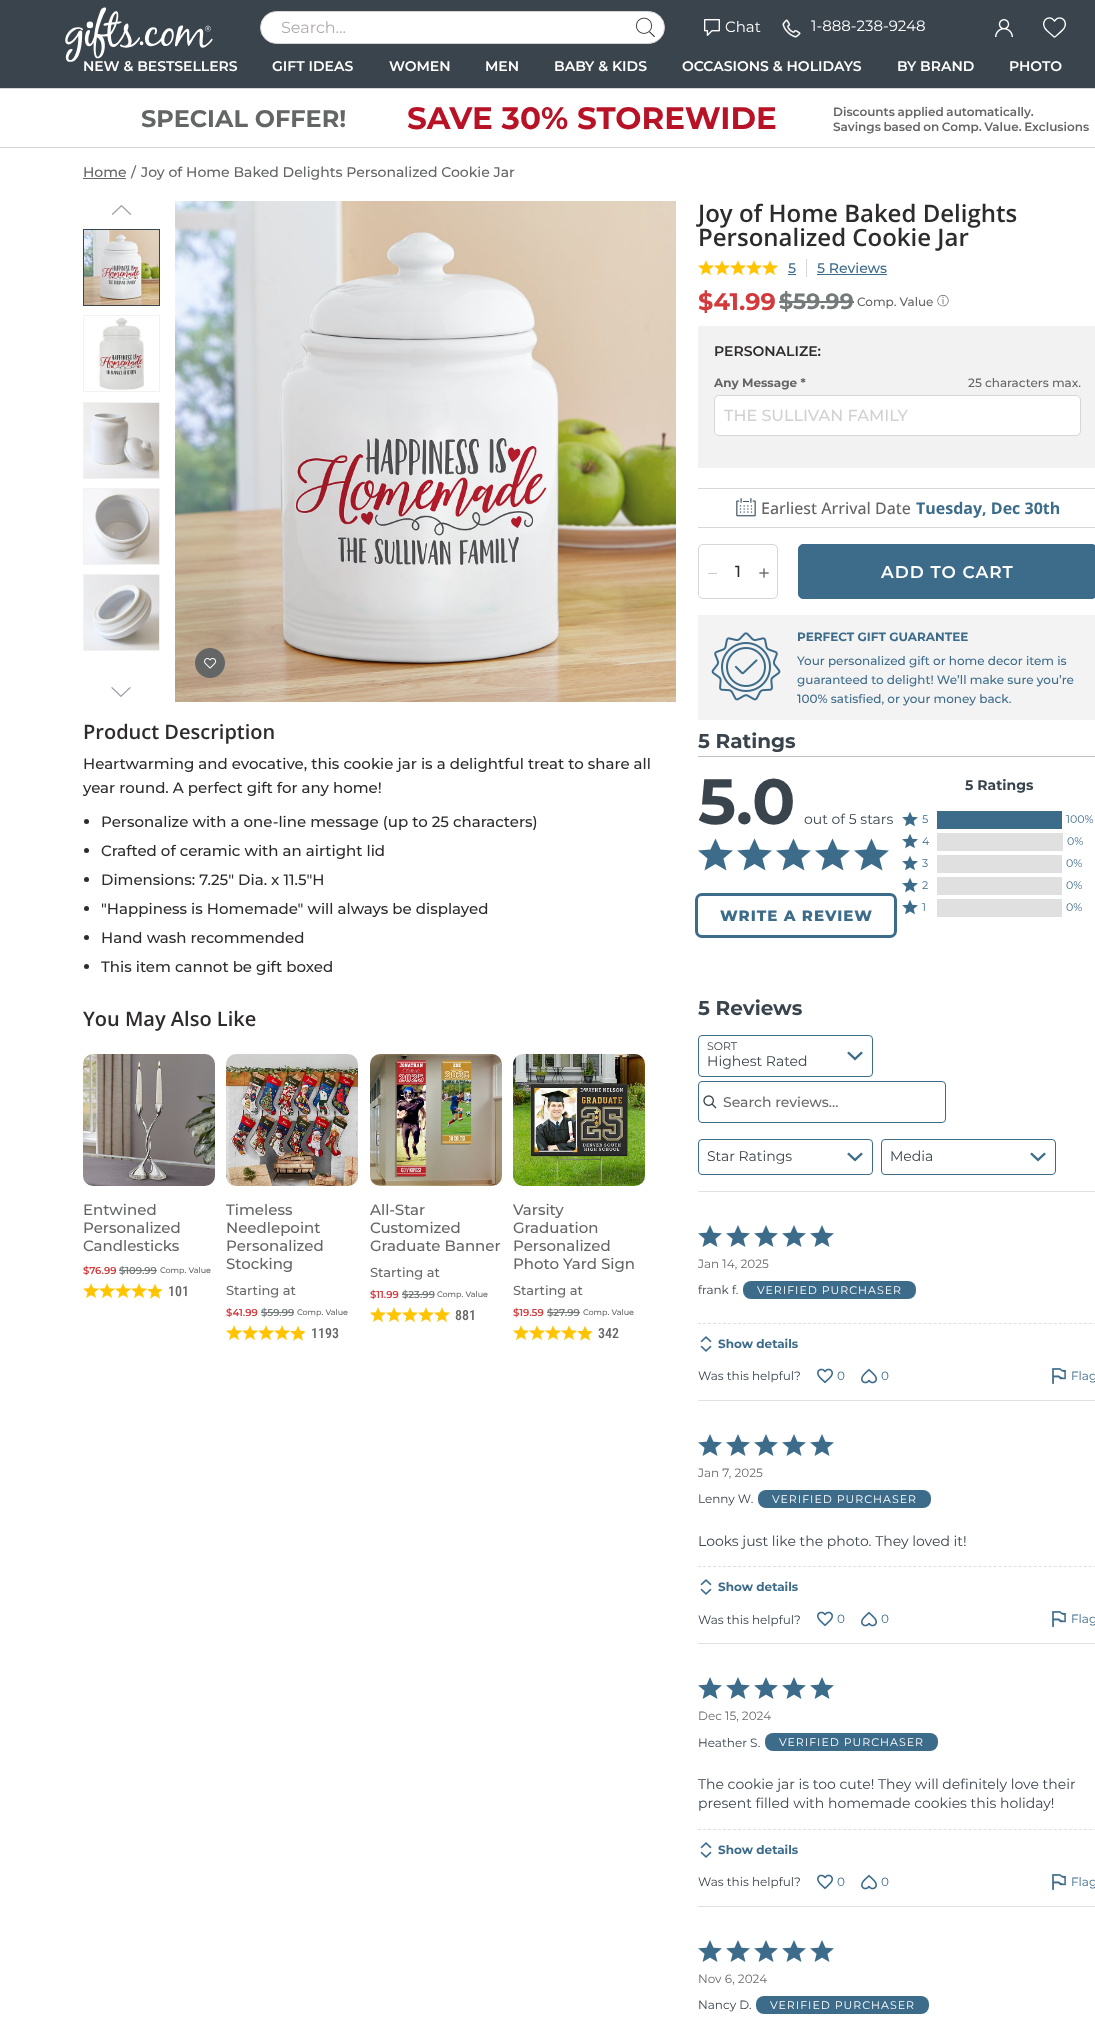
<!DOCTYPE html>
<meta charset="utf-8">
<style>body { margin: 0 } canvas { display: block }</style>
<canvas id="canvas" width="1095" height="2021"></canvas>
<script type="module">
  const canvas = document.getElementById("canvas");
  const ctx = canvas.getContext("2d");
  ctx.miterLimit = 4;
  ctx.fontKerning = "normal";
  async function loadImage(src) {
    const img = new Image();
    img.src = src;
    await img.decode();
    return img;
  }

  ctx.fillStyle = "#ffffff";
  ctx.fillRect(0, 0, 1095, 2021);
  ctx.fillStyle = "#3a444d";
  ctx.fillRect(0, 0, 1095, 88);
  ctx.drawImage(await loadImage("img1.png"), 704, 19, 16, 17);
  ctx.font = "15px Montserrat";
  ctx.fillStyle = "#ffffff";
  ctx.fillText("Chat", 725, 32);
  ctx.drawImage(await loadImage("img2.png"), 782, 19, 19, 19);
  ctx.fillText("1-888-238-9248", 811, 31);
  ctx.drawImage(await loadImage("img3.png"), 995, 19, 18, 18);
  ctx.drawImage(await loadImage("img4.png"), 1043, 17, 23, 21);
  ctx.font = "600 14px Montserrat";
  ctx.fillText("NEW & BESTSELLERS", 83, 71);
  ctx.drawImage(await loadImage("img5.png"), 65, 7, 148, 55);
  ctx.beginPath();
  ctx.roundRect(260.5, 11.5, 404, 32, 16);
  ctx.fill();
  ctx.strokeStyle = "#d6d6d6";
  ctx.stroke();
  ctx.font = "16px Montserrat";
  ctx.fillStyle = "#b1acac";
  ctx.fillText("Search...", 281, 33);
  ctx.drawImage(await loadImage("img6.png"), 636, 17, 19, 20);
  ctx.font = "600 14px Montserrat";
  ctx.fillStyle = "#ffffff";
  ctx.fillText("GIFT IDEAS", 272, 71);
  ctx.fillText("WOMEN", 389, 71);
  ctx.fillText("MEN", 485, 71);
  ctx.fillText("BABY & KIDS", 554, 71);
  ctx.fillText("OCCASIONS & HOLIDAYS", 682, 71);
  ctx.fillText("BY BRAND", 897, 71);
  ctx.fillText("PHOTO", 1009, 71);
  ctx.fillStyle = "#d6d6d6";
  ctx.fillRect(0, 88, 1095, 1);
  ctx.fillRect(0, 147, 1095, 1);
  ctx.font = "bold 24px Montserrat";
  ctx.fillStyle = "#646565";
  ctx.fillText("SPECIAL OFFER!", 141, 127);
  ctx.font = "bold 31px Montserrat";
  ctx.fillStyle = "#b81226";
  ctx.fillText("SAVE 30% STOREWIDE", 407, 129);
  ctx.wordSpacing = "-0.75px";
  ctx.font = "600 12px Montserrat";
  ctx.fillStyle = "#646565";
  ctx.fillText("Discounts applied automatically.", 833, 116);
  ctx.fillText("Savings based on Comp. Value. Exclusions", 833, 131);
  ctx.wordSpacing = "0px";
  ctx.font = "500 14px Montserrat";
  ctx.fillText("Home", 83, 177);
  ctx.fillRect(83, 178, 43, 1);
  ctx.fillText("/", 131, 177);
  ctx.fillText("Joy of Home Baked Delights Personalized Cookie Jar", 141, 177);
  ctx.drawImage(await loadImage("img7.png"), 112, 205, 19, 10);
  ctx.strokeStyle = "#3a444d";
  ctx.strokeRect(83.5, 229.5, 76, 76);
  ctx.drawImage(await loadImage("img8.png"), 84, 230, 75, 75);
  ctx.strokeStyle = "#f3f2f2";
  ctx.strokeRect(83.5, 315.5, 76, 76);
  ctx.drawImage(await loadImage("img9.png"), 97, 317, 47, 73);
  ctx.strokeRect(83.5, 402.5, 76, 76);
  ctx.drawImage(await loadImage("img10.png"), 84, 403, 75, 75);
  ctx.strokeRect(83.5, 488.5, 76, 76);
  ctx.drawImage(await loadImage("img11.png"), 84, 489, 75, 75);
  ctx.strokeRect(83.5, 574.5, 76, 76);
  ctx.drawImage(await loadImage("img12.png"), 84, 575, 75, 75);
  ctx.drawImage(await loadImage("img13.png"), 111, 687, 20, 10);
  ctx.drawImage(await loadImage("img14.png"), 175, 201, 501, 501);
  ctx.drawImage(await loadImage("img15.png"), 195, 648, 30, 30);
  ctx.font = "600 20px Open Sans";
  ctx.fillStyle = "#2d2b2b";
  ctx.fillText("Product Description", 83, 739);
  ctx.font = "500 15px Montserrat";
  ctx.fillText("Heartwarming and evocative, this cookie jar is a delightful treat to share all", 83, 769);
  ctx.fillText("year round. A perfect gift for any home!", 83, 793);
  ctx.beginPath();
  ctx.arc(86.5, 821.5, 2.5, 0, Math.PI * 2);
  ctx.fill();
  ctx.fillText("Personalize with a one-line message (up to 25 characters)", 101, 827);
  ctx.beginPath();
  ctx.arc(86.5, 850.5, 2.5, 0, Math.PI * 2);
  ctx.fill();
  ctx.fillText("Crafted of ceramic with an airtight lid", 101, 856);
  ctx.beginPath();
  ctx.arc(86.5, 879.5, 2.5, 0, Math.PI * 2);
  ctx.fill();
  ctx.fillText("Dimensions: 7.25\" Dia. x 11.5\"H", 101, 885);
  ctx.beginPath();
  ctx.arc(86.5, 908.5, 2.5, 0, Math.PI * 2);
  ctx.fill();
  ctx.fillText("\"Happiness is Homemade\" will always be displayed", 101, 914);
  ctx.beginPath();
  ctx.arc(86.5, 937.5, 2.5, 0, Math.PI * 2);
  ctx.fill();
  ctx.fillText("Hand wash recommended", 101, 943);
  ctx.beginPath();
  ctx.arc(86.5, 966.5, 2.5, 0, Math.PI * 2);
  ctx.fill();
  ctx.fillText("This item cannot be gift boxed", 101, 972);
  ctx.font = "600 20px Open Sans";
  ctx.fillText("You May Also Like", 83, 1026);
  ctx.drawImage(await loadImage("img16.png"), 83, 1054, 132, 132);
  ctx.font = "500 15px Montserrat";
  ctx.fillStyle = "#646565";
  ctx.fillText("Entwined", 83, 1215);
  ctx.fillText("Personalized", 83, 1233);
  ctx.fillText("Candlesticks", 83, 1251);
  ctx.font = "600 10px Montserrat";
  ctx.fillStyle = "#d23a3c";
  ctx.fillText("$76.99", 83, 1274);
  ctx.fillStyle = "#757a7b";
  ctx.fillText("$109.99", 119, 1274);
  ctx.fillRect(119, 1270, 38, 1);
  ctx.font = "500 8px Montserrat";
  ctx.fillStyle = "#646565";
  ctx.fillText("Comp. Value", 160, 1273);
  ctx.drawImage(await loadImage("img17.png"), 83, 1283, 16, 15);
  ctx.drawImage(await loadImage("img17.png"), 99, 1283, 16, 15);
  ctx.drawImage(await loadImage("img17.png"), 115, 1283, 16, 15);
  ctx.drawImage(await loadImage("img17.png"), 131, 1283, 16, 15);
  ctx.drawImage(await loadImage("img18.png"), 147, 1283, 16, 16);
  ctx.font = "500 14px Roboto Condensed";
  ctx.fillText("101", 168, 1296);
  ctx.drawImage(await loadImage("img19.png"), 226, 1054, 132, 132);
  ctx.font = "500 15px Montserrat";
  ctx.fillText("Timeless", 226, 1215);
  ctx.fillText("Needlepoint", 226, 1233);
  ctx.fillText("Personalized", 226, 1251);
  ctx.fillText("Stocking", 226, 1269);
  ctx.font = "500 13px Montserrat";
  ctx.fillStyle = "#6b6b6b";
  ctx.fillText("Starting at", 226, 1295);
  ctx.font = "600 10px Montserrat";
  ctx.fillStyle = "#d23a3c";
  ctx.fillText("$41.99", 226, 1316);
  ctx.fillStyle = "#757a7b";
  ctx.fillText("$59.99", 261, 1316);
  ctx.fillRect(261, 1312, 33, 1);
  ctx.font = "500 8px Montserrat";
  ctx.fillStyle = "#646565";
  ctx.fillText("Comp. Value", 297, 1315);
  ctx.drawImage(await loadImage("img17.png"), 226, 1325, 16, 15);
  ctx.drawImage(await loadImage("img17.png"), 242, 1325, 16, 15);
  ctx.drawImage(await loadImage("img17.png"), 258, 1325, 16, 15);
  ctx.drawImage(await loadImage("img17.png"), 274, 1325, 16, 15);
  ctx.drawImage(await loadImage("img18.png"), 290, 1325, 16, 16);
  ctx.font = "500 14px Roboto Condensed";
  ctx.fillText("1193", 311, 1338);
  ctx.drawImage(await loadImage("img20.png"), 370, 1054, 132, 132);
  ctx.font = "500 15px Montserrat";
  ctx.fillText("All-Star", 370, 1215);
  ctx.fillText("Customized", 370, 1233);
  ctx.fillText("Graduate Banner", 370, 1251);
  ctx.font = "500 13px Montserrat";
  ctx.fillStyle = "#6b6b6b";
  ctx.fillText("Starting at", 370, 1277);
  ctx.font = "600 10px Montserrat";
  ctx.fillStyle = "#d23a3c";
  ctx.fillText("$11.99", 370, 1298);
  ctx.fillStyle = "#757a7b";
  ctx.fillText("$23.99", 402, 1298);
  ctx.fillRect(402, 1294, 32, 1);
  ctx.font = "500 8px Montserrat";
  ctx.fillStyle = "#646565";
  ctx.fillText("Comp. Value", 437, 1297);
  ctx.drawImage(await loadImage("img17.png"), 370, 1307, 16, 15);
  ctx.drawImage(await loadImage("img17.png"), 386, 1307, 16, 15);
  ctx.drawImage(await loadImage("img17.png"), 402, 1307, 16, 15);
  ctx.drawImage(await loadImage("img17.png"), 418, 1307, 16, 15);
  ctx.drawImage(await loadImage("img17.png"), 434, 1307, 16, 15);
  ctx.font = "500 14px Roboto Condensed";
  ctx.fillText("881", 455, 1320);
  ctx.drawImage(await loadImage("img21.png"), 513, 1054, 132, 132);
  ctx.font = "500 15px Montserrat";
  ctx.fillText("Varsity", 513, 1215);
  ctx.fillText("Graduation", 513, 1233);
  ctx.fillText("Personalized", 513, 1251);
  ctx.fillText("Photo Yard Sign", 513, 1269);
  ctx.font = "500 13px Montserrat";
  ctx.fillStyle = "#6b6b6b";
  ctx.fillText("Starting at", 513, 1295);
  ctx.font = "600 10px Montserrat";
  ctx.fillStyle = "#d23a3c";
  ctx.fillText("$19.59", 513, 1316);
  ctx.fillStyle = "#757a7b";
  ctx.fillText("$27.99", 547, 1316);
  ctx.fillRect(547, 1312, 33, 1);
  ctx.font = "500 8px Montserrat";
  ctx.fillStyle = "#646565";
  ctx.fillText("Comp. Value", 583, 1315);
  ctx.drawImage(await loadImage("img17.png"), 513, 1325, 16, 15);
  ctx.drawImage(await loadImage("img17.png"), 529, 1325, 16, 15);
  ctx.drawImage(await loadImage("img17.png"), 545, 1325, 16, 15);
  ctx.drawImage(await loadImage("img17.png"), 561, 1325, 16, 15);
  ctx.drawImage(await loadImage("img18.png"), 577, 1325, 16, 16);
  ctx.font = "500 14px Roboto Condensed";
  ctx.fillText("342", 598, 1338);
  ctx.font = "600 24px Open Sans";
  ctx.fillStyle = "#2d2b2b";
  ctx.fillText("Joy of Home Baked Delights", 698, 222);
  ctx.fillText("Personalized Cookie Jar", 698, 246);
  ctx.drawImage(await loadImage("img17.png"), 698, 260, 16, 15);
  ctx.drawImage(await loadImage("img17.png"), 714, 260, 16, 15);
  ctx.drawImage(await loadImage("img17.png"), 730, 260, 16, 15);
  ctx.drawImage(await loadImage("img17.png"), 746, 260, 16, 15);
  ctx.drawImage(await loadImage("img17.png"), 762, 260, 16, 15);
  ctx.fillStyle = "#d6d6d6";
  ctx.fillRect(806, 259, 1, 18);
  ctx.font = "500 14px Montserrat";
  ctx.fillStyle = "#3d6c8b";
  ctx.fillText("5", 788, 273);
  ctx.fillRect(788, 274, 8, 1);
  ctx.fillText("5 Reviews", 817, 273);
  ctx.fillRect(817, 274, 70, 1);
  ctx.font = "bold 24px Montserrat";
  ctx.fillStyle = "#d23a3c";
  ctx.fillText("$41.99", 698, 310);
  ctx.font = "bold 22px Montserrat";
  ctx.fillStyle = "#757a7b";
  ctx.fillText("$59.99", 779, 309);
  ctx.fillRect(779, 301, 75, 2);
  ctx.font = "500 12px Montserrat";
  ctx.fillStyle = "#646565";
  ctx.fillText("Comp. Value", 857, 306);
  ctx.font = "500 12px WenQuanYi Zen Hei";
  ctx.fillText("ⓘ", 937, 305);
  ctx.fillStyle = "#f3f2f2";
  ctx.fillRect(698, 326, 397, 142);
  ctx.font = "600 14px Montserrat";
  ctx.fillStyle = "#2d2b2b";
  ctx.fillText("PERSONALIZE:", 714, 356);
  ctx.font = "bold 12px Montserrat";
  ctx.fillStyle = "#646565";
  ctx.fillText("Any Message *", 714, 387);
  ctx.font = "500 12px Montserrat";
  ctx.fillText("25 characters max.", 968, 387);
  ctx.fillStyle = "#ffffff";
  ctx.beginPath();
  ctx.roundRect(714.5, 395.5, 366, 40, 4.5);
  ctx.fill();
  ctx.strokeStyle = "#d6d6d6";
  ctx.stroke();
  ctx.font = "500 16px Montserrat";
  ctx.fillStyle = "#d1d1d1";
  ctx.fillText("THE SULLIVAN FAMILY", 724, 421);
  ctx.fillStyle = "#d6d6d6";
  ctx.fillRect(698, 488, 397, 1);
  ctx.fillRect(698, 527, 397, 1);
  ctx.drawImage(await loadImage("img22.png"), 736, 498, 20, 19);
  ctx.font = "500 16px Open Sans";
  ctx.fillStyle = "#646565";
  ctx.fillText("Earliest Arrival Date", 761, 514);
  ctx.font = "bold 16px Open Sans";
  ctx.fillStyle = "#3d6c8b";
  ctx.fillText("Tuesday, Dec 30th", 916, 514);
  ctx.beginPath();
  ctx.roundRect(698.5, 544.5, 79, 54, 4.5);
  ctx.stroke();
  ctx.fillStyle = "#cccccc";
  ctx.fillRect(708, 573, 9, 1);
  ctx.font = "500 16px Montserrat";
  ctx.fillStyle = "#2d2b2b";
  ctx.fillText("1", 735, 577);
  ctx.drawImage(await loadImage("img23.png"), 759, 568, 10, 10);
  ctx.fillStyle = "#3d6c8b";
  ctx.beginPath();
  ctx.roundRect(798.5, 544.5, 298, 54, 4.5);
  ctx.fill();
  ctx.strokeStyle = "#3d6c8b";
  ctx.stroke();
  ctx.letterSpacing = "1px";
  ctx.font = "600 17px Montserrat";
  ctx.fillStyle = "#ffffff";
  ctx.fillText("ADD TO CART", 881, 578);
  ctx.fillStyle = "#f3f3f3";
  ctx.fillRect(698, 615, 397, 105);
  ctx.drawImage(await loadImage("img24.png"), 711, 632, 70, 69);
  ctx.letterSpacing = "0px";
  ctx.font = "bold 12px Montserrat";
  ctx.fillStyle = "#3d6c8b";
  ctx.fillText("PERFECT GIFT GUARANTEE", 797, 641);
  ctx.font = "500 12px Montserrat";
  ctx.fillText("Your personalized gift or home decor item is", 797, 665);
  ctx.fillText("guaranteed to delight! We’ll make sure you’re", 797, 684);
  ctx.fillText("100% satisfied, or your money back.", 797, 703);
  ctx.fillStyle = "#bfbfbf";
  ctx.fillRect(698, 756, 397, 1);
  ctx.font = "bold 20px Montserrat";
  ctx.fillStyle = "#3a444d";
  ctx.fillText("5 Ratings", 698, 748);
  ctx.font = "bold 64px Montserrat";
  ctx.fillText("5.0", 698, 824);
  ctx.font = "14px Montserrat";
  ctx.fillText("out of 5 stars", 804, 824);
  ctx.fillStyle = "#3d6c8b";
  ctx.beginPath();
  ctx.moveTo(715.5, 864);
  ctx.lineTo(704.5, 870.5);
  ctx.lineTo(707.5, 858.5);
  ctx.lineTo(698, 850.5);
  ctx.lineTo(710.5, 849.5);
  ctx.lineTo(715.5, 838.5);
  ctx.lineTo(720.5, 849.5);
  ctx.lineTo(733, 850.5);
  ctx.lineTo(723.5, 858.5);
  ctx.lineTo(726.5, 870.5);
  ctx.closePath();
  ctx.fill();
  ctx.beginPath();
  ctx.moveTo(754.5, 864);
  ctx.lineTo(743.5, 870.5);
  ctx.lineTo(746.5, 858.5);
  ctx.lineTo(737, 850.5);
  ctx.lineTo(749.5, 849.5);
  ctx.lineTo(754.5, 838.5);
  ctx.lineTo(759.5, 849.5);
  ctx.lineTo(772, 850.5);
  ctx.lineTo(762.5, 858.5);
  ctx.lineTo(765.5, 870.5);
  ctx.closePath();
  ctx.fill();
  ctx.beginPath();
  ctx.moveTo(793.5, 864);
  ctx.lineTo(782.5, 870.5);
  ctx.lineTo(785.5, 858.5);
  ctx.lineTo(776, 850.5);
  ctx.lineTo(788.5, 849.5);
  ctx.lineTo(793.5, 838.5);
  ctx.lineTo(798.5, 849.5);
  ctx.lineTo(811, 850.5);
  ctx.lineTo(801.5, 858.5);
  ctx.lineTo(804.5, 870.5);
  ctx.closePath();
  ctx.fill();
  ctx.beginPath();
  ctx.moveTo(832.5, 864);
  ctx.lineTo(821.5, 870.5);
  ctx.lineTo(824.5, 858.5);
  ctx.lineTo(815, 850.5);
  ctx.lineTo(827.5, 849.5);
  ctx.lineTo(832.5, 838.5);
  ctx.lineTo(837.5, 849.5);
  ctx.lineTo(850, 850.5);
  ctx.lineTo(840.5, 858.5);
  ctx.lineTo(843.5, 870.5);
  ctx.closePath();
  ctx.fill();
  ctx.beginPath();
  ctx.moveTo(871.5, 864);
  ctx.lineTo(860.5, 870.5);
  ctx.lineTo(863.5, 858.5);
  ctx.lineTo(854, 850.5);
  ctx.lineTo(866.5, 849.5);
  ctx.lineTo(871.5, 838.5);
  ctx.lineTo(876.5, 849.5);
  ctx.lineTo(889, 850.5);
  ctx.lineTo(879.5, 858.5);
  ctx.lineTo(882.5, 870.5);
  ctx.closePath();
  ctx.fill();
  ctx.beginPath();
  ctx.roundRect(696.5, 894.5, 199, 42, 5.5);
  ctx.lineWidth = 3;
  ctx.stroke();
  ctx.letterSpacing = "1px";
  ctx.font = "800 15px Montserrat";
  ctx.fillText("WRITE A REVIEW", 720, 921);
  ctx.letterSpacing = "0px";
  ctx.font = "bold 14px Montserrat";
  ctx.fillStyle = "#3a444d";
  ctx.fillText("5 Ratings", 965, 790);
  ctx.drawImage(await loadImage("img25.png"), 902, 811, 16, 16);
  ctx.font = "11px Montserrat";
  ctx.fillStyle = "#3d6c8b";
  ctx.fillText("5", 922, 823);
  ctx.fillRect(937, 811, 125, 18);
  ctx.fillText("100%", 1066, 823);
  ctx.drawImage(await loadImage("img25.png"), 902, 833, 16, 16);
  ctx.fillText("4", 922, 845);
  ctx.fillStyle = "#e0e0e0";
  ctx.fillRect(937, 833, 126, 18);
  ctx.fillStyle = "#3d6c8b";
  ctx.fillText("0%", 1067, 845);
  ctx.drawImage(await loadImage("img25.png"), 902, 855, 16, 16);
  ctx.fillText("3", 922, 867);
  ctx.fillStyle = "#e0e0e0";
  ctx.fillRect(937, 855, 125, 18);
  ctx.fillStyle = "#3d6c8b";
  ctx.fillText("0%", 1066, 867);
  ctx.drawImage(await loadImage("img25.png"), 902, 877, 16, 16);
  ctx.fillText("2", 922, 889);
  ctx.fillStyle = "#e0e0e0";
  ctx.fillRect(937, 877, 125, 18);
  ctx.fillStyle = "#3d6c8b";
  ctx.fillText("0%", 1066, 889);
  ctx.drawImage(await loadImage("img25.png"), 902, 899, 16, 16);
  ctx.fillText("1", 922, 911);
  ctx.fillStyle = "#e0e0e0";
  ctx.fillRect(937, 899, 125, 18);
  ctx.fillStyle = "#3d6c8b";
  ctx.fillText("0%", 1066, 911);
  ctx.font = "bold 20px Montserrat";
  ctx.fillStyle = "#3a444d";
  ctx.fillText("5 Reviews", 698, 1015);
  ctx.fillStyle = "#e0e0e0";
  ctx.fillRect(698, 1191, 397, 1);
  ctx.beginPath();
  ctx.roundRect(698.5, 1035.5, 174, 41, 3.5);
  ctx.lineWidth = 1;
  ctx.stroke();
  ctx.font = "11px Montserrat";
  ctx.fillStyle = "#3a444d";
  ctx.fillText("SORT", 707, 1050);
  ctx.font = "14px Montserrat";
  ctx.fillText("Highest Rated", 707, 1066);
  ctx.drawImage(await loadImage("img26.png"), 847, 1051, 16, 10);
  ctx.beginPath();
  ctx.roundRect(698.5, 1081.5, 247, 41, 3.5);
  ctx.stroke();
  ctx.drawImage(await loadImage("img27.png"), 703, 1095, 14, 14);
  ctx.font = "500 14px Montserrat";
  ctx.fillStyle = "#6b6b6b";
  ctx.fillText("Search reviews…", 723, 1107);
  ctx.beginPath();
  ctx.roundRect(698.5, 1139.5, 174, 35, 3.5);
  ctx.stroke();
  ctx.font = "14px Montserrat";
  ctx.fillStyle = "#3a444d";
  ctx.fillText("Star Ratings", 707, 1161);
  ctx.drawImage(await loadImage("img26.png"), 847, 1152, 16, 10);
  ctx.beginPath();
  ctx.roundRect(881.5, 1139.5, 174, 35, 3.5);
  ctx.stroke();
  ctx.fillText("Media", 890, 1161);
  ctx.drawImage(await loadImage("img26.png"), 1030, 1152, 16, 10);
  ctx.fillStyle = "#e0e0e0";
  ctx.fillRect(698, 1400, 397, 1);
  ctx.drawImage(await loadImage("img28.png"), 698, 1225, 24, 22);
  ctx.drawImage(await loadImage("img28.png"), 726, 1225, 24, 22);
  ctx.drawImage(await loadImage("img28.png"), 754, 1225, 24, 22);
  ctx.drawImage(await loadImage("img28.png"), 782, 1225, 24, 22);
  ctx.drawImage(await loadImage("img28.png"), 810, 1225, 24, 22);
  ctx.font = "12px Montserrat";
  ctx.fillStyle = "#6b6b6b";
  ctx.fillText("Jan 14, 2025", 698, 1268);
  ctx.fillStyle = "#3a444d";
  ctx.fillText("frank f.", 698, 1294);
  ctx.fillStyle = "#3d6c8b";
  ctx.beginPath();
  ctx.roundRect(743, 1281, 173, 18, 8);
  ctx.fill();
  ctx.letterSpacing = "1px";
  ctx.font = "11px Montserrat";
  ctx.fillStyle = "#ffffff";
  ctx.fillText("VERIFIED PURCHASER", 757, 1294);
  ctx.beginPath();
  ctx.moveTo(698, 1323.5);
  ctx.lineTo(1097, 1323.5);
  ctx.strokeStyle = "#e0e0e0";
  ctx.setLineDash([3, 2.01]);
  ctx.stroke();
  ctx.drawImage(await loadImage("img29.png"), 700, 1336, 12, 16);
  ctx.letterSpacing = "0px";
  ctx.font = "bold 12px Montserrat";
  ctx.fillStyle = "#3d6c8b";
  ctx.fillText("Show details", 718, 1348);
  ctx.font = "12px Montserrat";
  ctx.fillStyle = "#3a444d";
  ctx.fillText("Was this helpful?", 698, 1380);
  ctx.drawImage(await loadImage("img30.png"), 817, 1368, 16, 16);
  ctx.fillStyle = "#3d6c8b";
  ctx.fillText("0", 837, 1380);
  ctx.drawImage(await loadImage("img31.png"), 861, 1368, 16, 16);
  ctx.fillText("0", 881, 1380);
  ctx.drawImage(await loadImage("img32.png"), 1052, 1368, 14, 16);
  ctx.fillText("Flag", 1071, 1380);
  ctx.fillStyle = "#e0e0e0";
  ctx.fillRect(698, 1643, 397, 1);
  ctx.drawImage(await loadImage("img28.png"), 698, 1434, 24, 22);
  ctx.drawImage(await loadImage("img28.png"), 726, 1434, 24, 22);
  ctx.drawImage(await loadImage("img28.png"), 754, 1434, 24, 22);
  ctx.drawImage(await loadImage("img28.png"), 782, 1434, 24, 22);
  ctx.drawImage(await loadImage("img28.png"), 810, 1434, 24, 22);
  ctx.fillStyle = "#6b6b6b";
  ctx.fillText("Jan 7, 2025", 698, 1477);
  ctx.fillStyle = "#3a444d";
  ctx.fillText("Lenny W.", 698, 1503);
  ctx.fillStyle = "#3d6c8b";
  ctx.beginPath();
  ctx.roundRect(758, 1490, 173, 18, 8);
  ctx.fill();
  ctx.letterSpacing = "1px";
  ctx.font = "11px Montserrat";
  ctx.fillStyle = "#ffffff";
  ctx.fillText("VERIFIED PURCHASER", 772, 1503);
  ctx.letterSpacing = "0px";
  ctx.font = "14px Montserrat";
  ctx.fillStyle = "#3a444d";
  ctx.fillText("Looks just like the photo. They loved it!", 698, 1546);
  ctx.beginPath();
  ctx.moveTo(698, 1566.5);
  ctx.lineTo(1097, 1566.5);
  ctx.stroke();
  ctx.drawImage(await loadImage("img29.png"), 700, 1579, 12, 16);
  ctx.font = "bold 12px Montserrat";
  ctx.fillStyle = "#3d6c8b";
  ctx.fillText("Show details", 718, 1591);
  ctx.font = "12px Montserrat";
  ctx.fillStyle = "#3a444d";
  ctx.fillText("Was this helpful?", 698, 1624);
  ctx.drawImage(await loadImage("img30.png"), 817, 1611, 16, 16);
  ctx.fillStyle = "#3d6c8b";
  ctx.fillText("0", 837, 1623);
  ctx.drawImage(await loadImage("img31.png"), 861, 1611, 16, 16);
  ctx.fillText("0", 881, 1623);
  ctx.drawImage(await loadImage("img32.png"), 1052, 1611, 14, 16);
  ctx.fillText("Flag", 1071, 1623);
  ctx.fillStyle = "#e0e0e0";
  ctx.fillRect(698, 1906, 397, 1);
  ctx.drawImage(await loadImage("img28.png"), 698, 1677, 24, 22);
  ctx.drawImage(await loadImage("img28.png"), 726, 1677, 24, 22);
  ctx.drawImage(await loadImage("img28.png"), 754, 1677, 24, 22);
  ctx.drawImage(await loadImage("img28.png"), 782, 1677, 24, 22);
  ctx.drawImage(await loadImage("img28.png"), 810, 1677, 24, 22);
  ctx.fillStyle = "#6b6b6b";
  ctx.fillText("Dec 15, 2024", 698, 1720);
  ctx.fillStyle = "#3a444d";
  ctx.fillText("Heather S.", 698, 1747);
  ctx.fillStyle = "#3d6c8b";
  ctx.beginPath();
  ctx.roundRect(765, 1733, 173, 18, 8);
  ctx.fill();
  ctx.letterSpacing = "1px";
  ctx.font = "11px Montserrat";
  ctx.fillStyle = "#ffffff";
  ctx.fillText("VERIFIED PURCHASER", 779, 1746);
  ctx.letterSpacing = "0px";
  ctx.font = "14px Montserrat";
  ctx.fillStyle = "#3a444d";
  ctx.fillText("The cookie jar is too cute! They will definitely love their", 698, 1789);
  ctx.fillText("present filled with homemade cookies this holiday!", 698, 1808);
  ctx.beginPath();
  ctx.moveTo(698, 1829.5);
  ctx.lineTo(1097, 1829.5);
  ctx.stroke();
  ctx.drawImage(await loadImage("img29.png"), 700, 1842, 12, 16);
  ctx.font = "bold 12px Montserrat";
  ctx.fillStyle = "#3d6c8b";
  ctx.fillText("Show details", 718, 1854);
  ctx.font = "12px Montserrat";
  ctx.fillStyle = "#3a444d";
  ctx.fillText("Was this helpful?", 698, 1886);
  ctx.drawImage(await loadImage("img30.png"), 817, 1874, 16, 16);
  ctx.fillStyle = "#3d6c8b";
  ctx.fillText("0", 837, 1886);
  ctx.drawImage(await loadImage("img31.png"), 861, 1874, 16, 16);
  ctx.fillText("0", 881, 1886);
  ctx.drawImage(await loadImage("img32.png"), 1052, 1874, 14, 16);
  ctx.fillText("Flag", 1071, 1886);
  ctx.drawImage(await loadImage("img28.png"), 698, 1940, 24, 22);
  ctx.drawImage(await loadImage("img28.png"), 726, 1940, 24, 22);
  ctx.drawImage(await loadImage("img28.png"), 754, 1940, 24, 22);
  ctx.drawImage(await loadImage("img28.png"), 782, 1940, 24, 22);
  ctx.drawImage(await loadImage("img28.png"), 810, 1940, 24, 22);
  ctx.fillStyle = "#6b6b6b";
  ctx.fillText("Nov 6, 2024", 698, 1983);
  ctx.fillStyle = "#3a444d";
  ctx.fillText("Nancy D.", 698, 2009);
  ctx.fillStyle = "#3d6c8b";
  ctx.beginPath();
  ctx.roundRect(756, 1996, 173, 18, 8);
  ctx.fill();
  ctx.letterSpacing = "1px";
  ctx.font = "11px Montserrat";
  ctx.fillStyle = "#ffffff";
  ctx.fillText("VERIFIED PURCHASER", 770, 2009);
</script>
